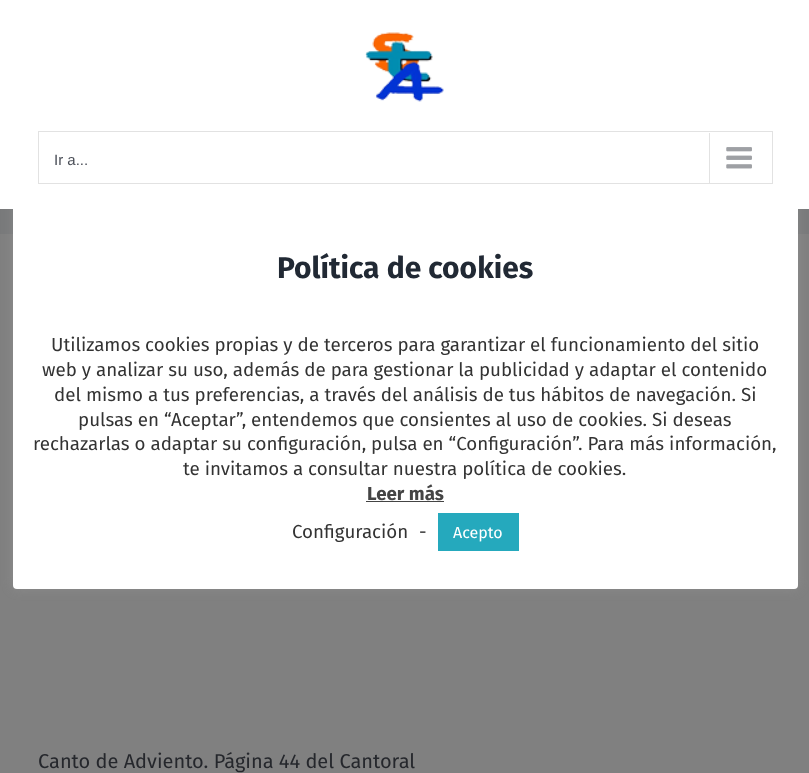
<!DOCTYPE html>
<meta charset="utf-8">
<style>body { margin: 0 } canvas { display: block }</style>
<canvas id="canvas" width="809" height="773"></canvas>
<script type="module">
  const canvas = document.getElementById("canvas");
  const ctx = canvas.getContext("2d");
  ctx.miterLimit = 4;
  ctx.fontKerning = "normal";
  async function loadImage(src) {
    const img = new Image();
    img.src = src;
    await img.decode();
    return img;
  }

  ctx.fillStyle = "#808080";
  ctx.fillRect(0, 0, 809, 773);
  ctx.fillStyle = "#797a7b";
  ctx.fillRect(0, 209, 809, 25);
  ctx.fillStyle = "rgba(172, 171, 171, 0.3)";
  ctx.filter = "blur(6px)";
  ctx.beginPath();
  ctx.roundRect(13, 171, 785, 417, 4);
  ctx.fill();
  ctx.filter = "none";
  ctx.fillStyle = "#ffffff";
  ctx.beginPath();
  ctx.roundRect(13, 173, 785, 416, 4);
  ctx.fill();
  ctx.fillRect(0, 0, 809, 209);
  ctx.drawImage(await loadImage("img1.png"), 365, 32, 79, 70);
  ctx.strokeStyle = "#e2e2e2";
  ctx.strokeRect(38.5, 131.5, 734, 52);
  ctx.font = "15px Liberation Sans";
  ctx.fillStyle = "#4a4e57";
  ctx.fillText("Ir a...", 54, 165);
  ctx.fillStyle = "#e2e2e2";
  ctx.fillRect(709, 133, 1, 50);
  ctx.drawImage(await loadImage("img2.png"), 726, 147, 26, 22);
  ctx.font = "20px Fira Sans";
  ctx.fillStyle = "#25272c";
  ctx.fillText("Canto de Adviento. Página 44 del Cantoral", 38, 768);
  ctx.font = "bold 30px Fira Sans";
  ctx.fillStyle = "#212934";
  ctx.fillText("Política de cookies", 277, 278);
  ctx.font = "18.75px Fira Sans";
  ctx.fillStyle = "#333333";
  ctx.fillText("Utilizamos cookies propias y de terceros para garantizar el funcionamiento del sitio", 51, 351);
  ctx.fillText("web y analizar su uso, además de para gestionar la publicidad y adaptar el contenido", 42, 376);
  ctx.fillText("del mismo a tus preferencias, a través del análisis de tus hábitos de navegación. Si", 54, 401);
  ctx.fillText("pulsas en “Aceptar”, entendemos que consientes al uso de cookies. Si deseas", 78, 426);
  ctx.fillText("rechazarlas o adaptar su configuración, pulsa en “Configuración”. Para más información,", 33, 450);
  ctx.fillText("te invitamos a consultar nuestra política de cookies.", 183, 475);
  ctx.font = "bold 18.75px Fira Sans";
  ctx.fillStyle = "#444444";
  ctx.fillText("Leer más", 367, 500);
  ctx.fillRect(366, 501, 78, 1);
  ctx.font = "18.75px Fira Sans";
  ctx.fillStyle = "#333333";
  ctx.fillText("Configuración", 292, 538);
  ctx.fillText("-", 419, 538);
  ctx.fillStyle = "#25a9bd";
  ctx.fillRect(438, 513, 81, 38);
  ctx.font = "16px Fira Sans";
  ctx.fillStyle = "#ffffff";
  ctx.fillText("Acepto", 453, 538);
</script>
